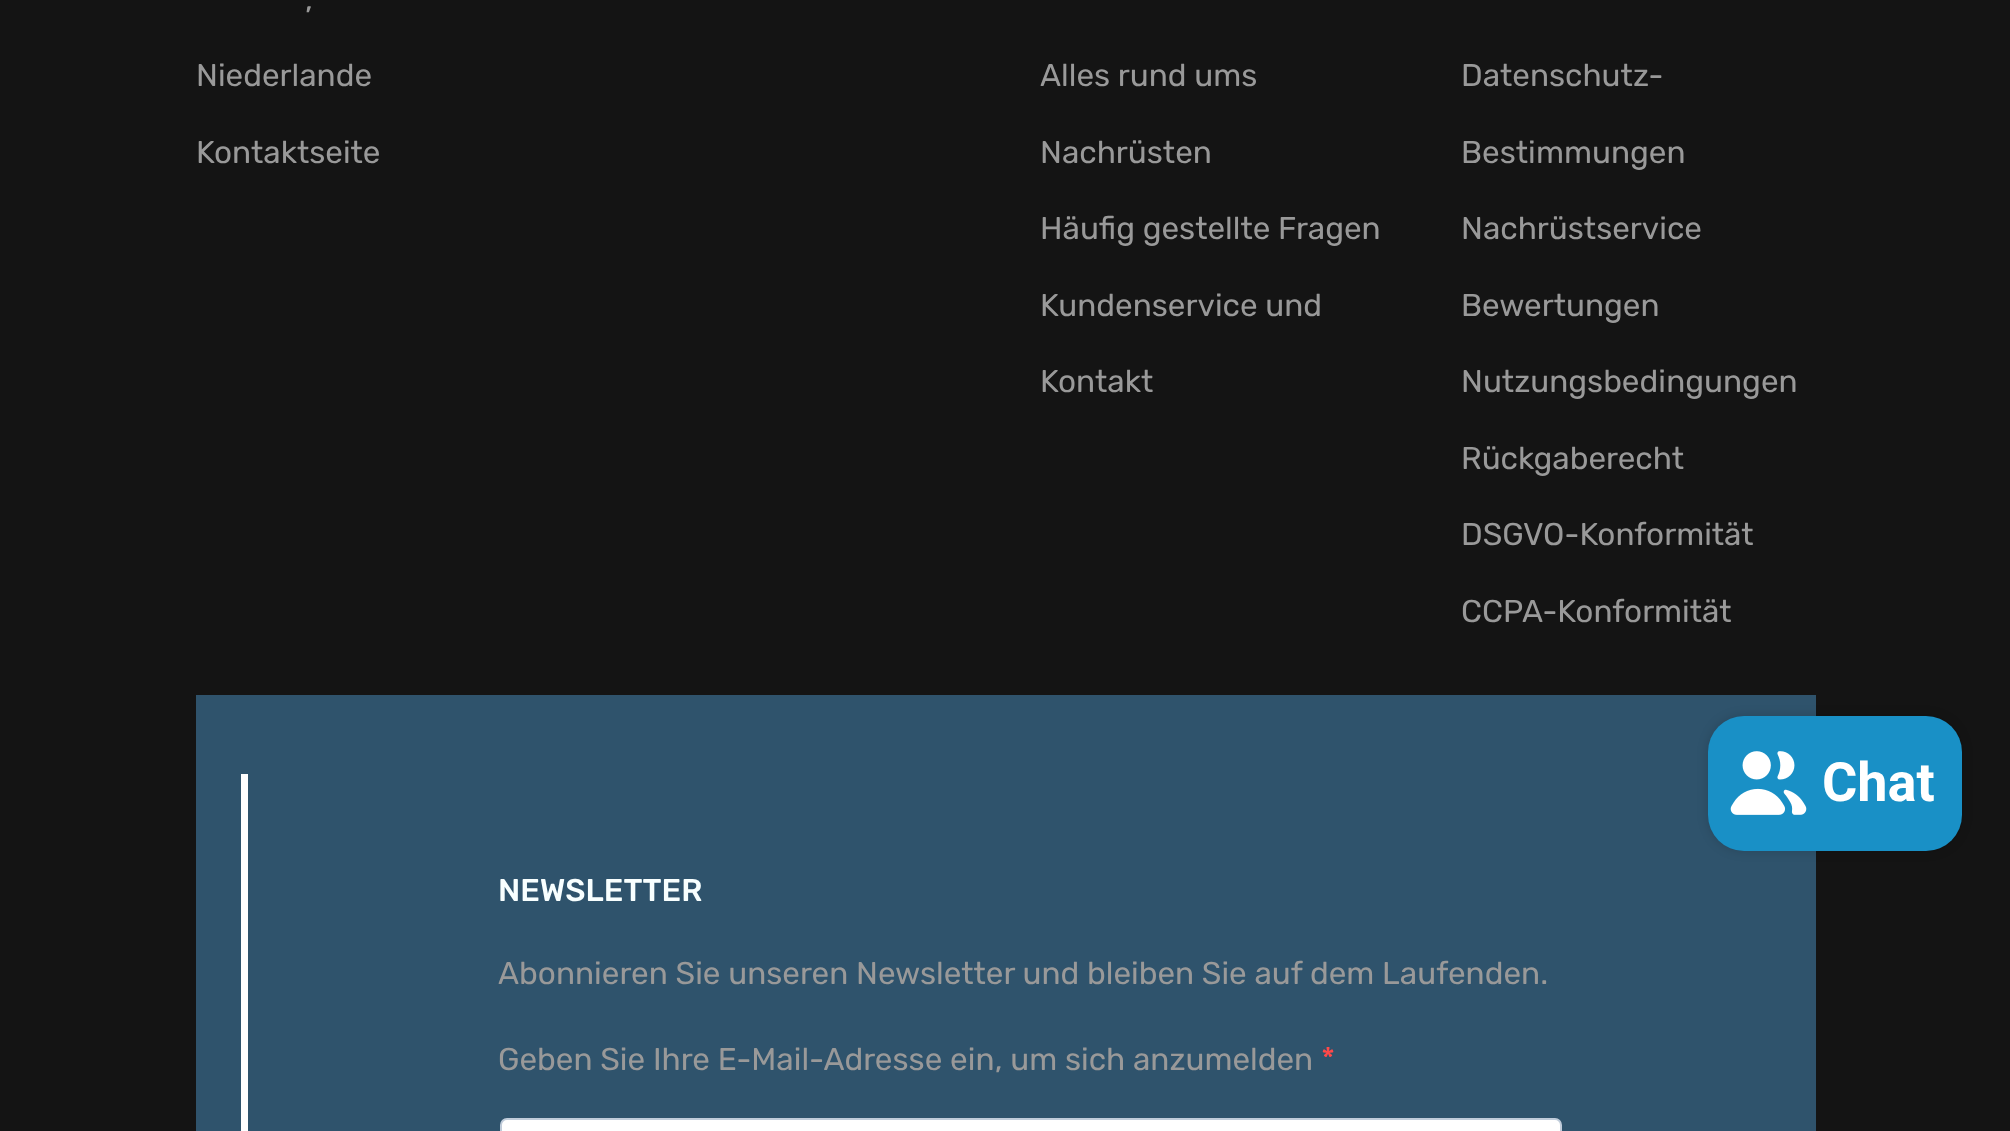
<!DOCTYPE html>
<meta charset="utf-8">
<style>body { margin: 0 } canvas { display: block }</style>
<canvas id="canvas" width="2010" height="1131"></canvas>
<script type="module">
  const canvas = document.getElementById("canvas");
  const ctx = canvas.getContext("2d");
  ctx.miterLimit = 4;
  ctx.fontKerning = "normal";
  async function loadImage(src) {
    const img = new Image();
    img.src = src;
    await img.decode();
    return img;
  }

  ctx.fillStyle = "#141414";
  ctx.fillRect(0, 0, 2010, 1131);
  ctx.font = "31.5px Rubik";
  ctx.fillStyle = "#999999";
  ctx.fillText(",", 305, 10);
  ctx.fillText("Niederlande", 196, 86);
  ctx.fillText("Kontaktseite", 196, 163);
  ctx.fillText("Alles rund ums", 1040, 86);
  ctx.fillText("Nachrüsten", 1040, 163);
  ctx.fillText("Häufig gestellte Fragen", 1040, 239);
  ctx.fillText("Kundenservice und", 1040, 316);
  ctx.fillText("Kontakt", 1040, 392);
  ctx.fillText("Datenschutz-", 1461, 86);
  ctx.fillText("Bestimmungen", 1461, 163);
  ctx.fillText("Nachrüstservice", 1461, 239);
  ctx.fillText("Bewertungen", 1461, 316);
  ctx.fillText("Nutzungsbedingungen", 1461, 392);
  ctx.fillText("Rückgaberecht", 1461, 469);
  ctx.fillText("DSGVO-Konformität", 1461, 545);
  ctx.fillText("CCPA-Konformität", 1461, 622);
  ctx.fillStyle = "#2f536c";
  ctx.fillRect(196, 695, 1620, 436);
  ctx.fillStyle = "#ffffff";
  ctx.fillRect(241, 774, 7, 357);
  ctx.font = "500 31.5px Rubik";
  ctx.fillStyle = "#f8ffff";
  ctx.fillText("NEWSLETTER", 498, 901);
  ctx.font = "31.5px Rubik";
  ctx.fillStyle = "#999999";
  ctx.fillText("Abonnieren Sie unseren Newsletter und bleiben Sie auf dem Laufenden.", 498, 984);
  ctx.fillText("Geben Sie Ihre E-Mail-Adresse ein, um sich anzumelden", 498, 1070);
  ctx.fillStyle = "#ff4949";
  ctx.fillText("*", 1321, 1070);
  ctx.fillStyle = "#ffffff";
  ctx.beginPath();
  ctx.roundRect(501, 1119, 1060, 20, 6);
  ctx.fill();
  ctx.strokeStyle = "#c0ccda";
  ctx.lineWidth = 2;
  ctx.stroke();
  ctx.fillStyle = "rgba(0, 0, 0, 0.15)";
  ctx.filter = "blur(5.5px)";
  ctx.beginPath();
  ctx.roundRect(1708, 716, 254, 135, 36);
  ctx.fill();
  ctx.filter = "none";
  ctx.fillStyle = "#1990c6";
  ctx.beginPath();
  ctx.roundRect(1708, 716, 254, 135, 36);
  ctx.fill();
  ctx.drawImage(await loadImage("img1.png"), 1730, 751, 77, 64);
  ctx.font = "bold 54px Roboto";
  ctx.fillStyle = "#ffffff";
  ctx.fillText("Chat", 1822, 801);
</script>
